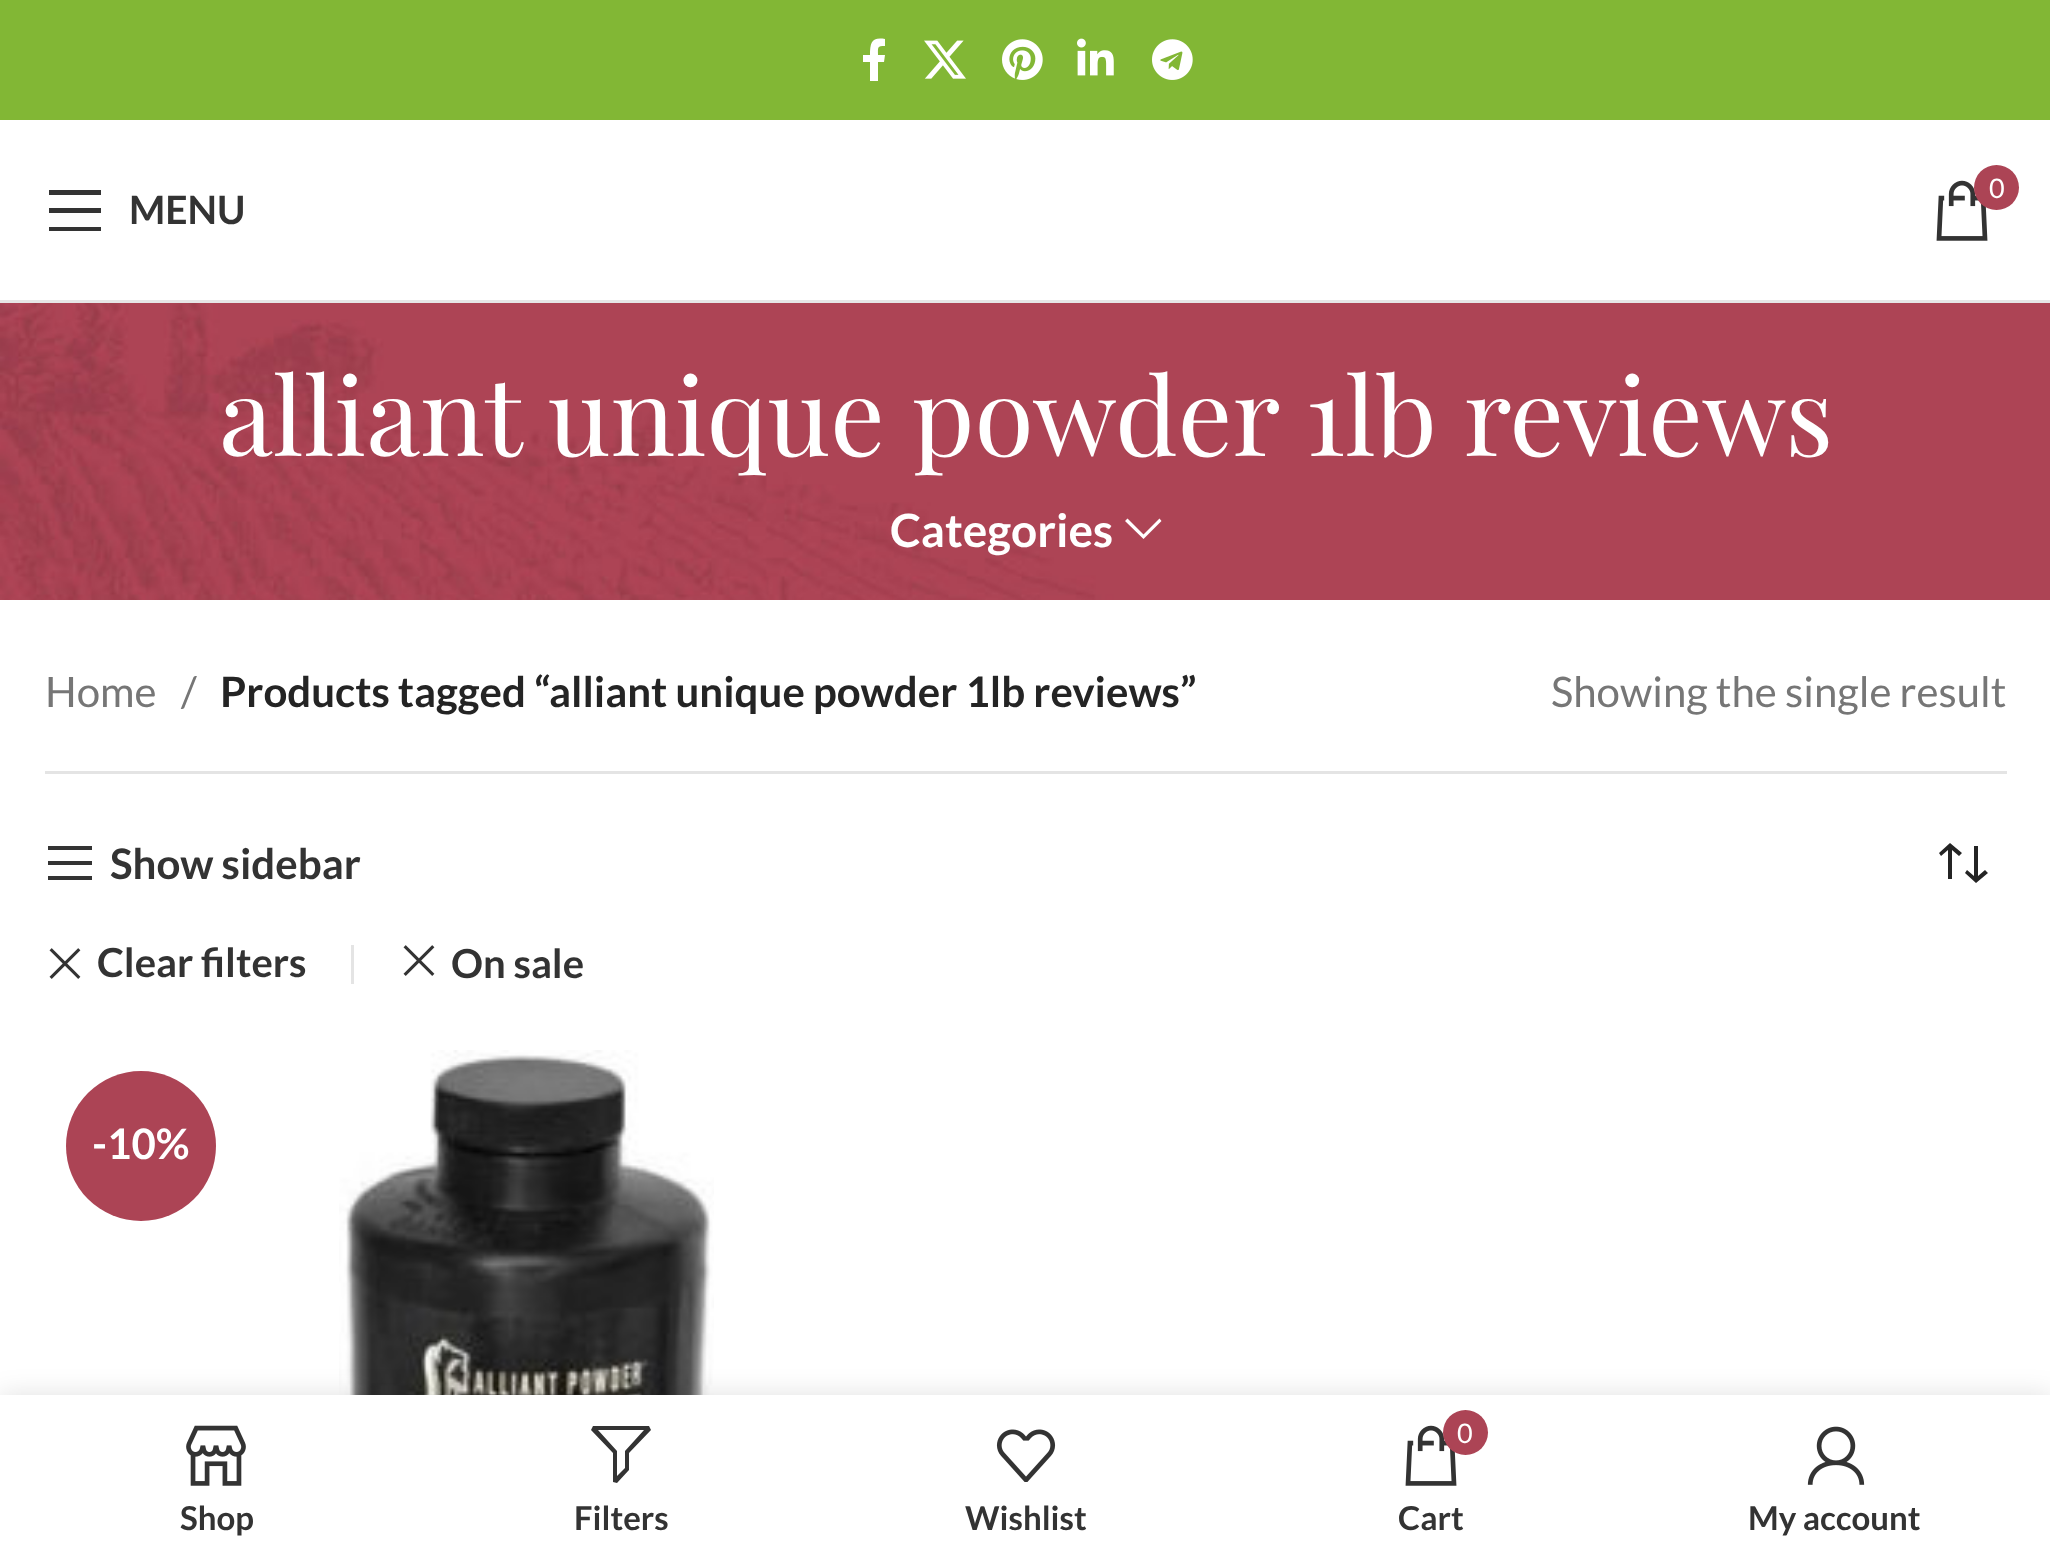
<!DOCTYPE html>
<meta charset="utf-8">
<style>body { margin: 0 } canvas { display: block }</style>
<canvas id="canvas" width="2050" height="1558"></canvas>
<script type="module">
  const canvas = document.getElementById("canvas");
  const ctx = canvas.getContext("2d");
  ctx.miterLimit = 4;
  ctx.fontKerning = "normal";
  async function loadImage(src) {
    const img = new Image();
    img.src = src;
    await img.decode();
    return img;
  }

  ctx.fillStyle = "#ffffff";
  ctx.fillRect(0, 0, 2050, 1558);
  ctx.fillStyle = "#82b735";
  ctx.fillRect(0, 0, 2050, 120);
  ctx.fillStyle = "#ffffff";
  ctx.beginPath();
  ctx.moveTo(884, 62);
  ctx.lineTo(885, 55);
  ctx.lineTo(878, 55);
  ctx.bezierCurveTo(878, 47, 877, 46, 885, 46);
  ctx.lineTo(885, 39);
  ctx.bezierCurveTo(872, 37, 870, 42, 870, 55);
  ctx.lineTo(863, 55);
  ctx.lineTo(863, 62);
  ctx.lineTo(870, 62);
  ctx.lineTo(870, 81);
  ctx.lineTo(878, 81);
  ctx.lineTo(878, 62);
  ctx.closePath();
  ctx.fill();
  ctx.drawImage(await loadImage("img1.png"), 924, 40, 42, 39);
  ctx.drawImage(await loadImage("img2.png"), 1002, 39, 41, 41);
  ctx.drawImage(await loadImage("img3.png"), 1077, 38, 37, 38);
  ctx.drawImage(await loadImage("img4.png"), 1152, 39, 41, 41);
  ctx.fillStyle = "#e6e6e6";
  ctx.fillRect(0, 300, 2050, 3);
  ctx.drawImage(await loadImage("img5.png"), 1936, 180, 52, 61);
  ctx.fillStyle = "#ac4455";
  ctx.beginPath();
  ctx.arc(1996.5, 187.5, 22.5, 0, Math.PI * 2);
  ctx.fill();
  ctx.font = "27px Lato";
  ctx.fillStyle = "#ffffff";
  ctx.fillText("0", 1989, 198);
  ctx.fillStyle = "#333333";
  ctx.beginPath();
  ctx.moveTo(49, 195);
  ctx.lineTo(101, 195);
  ctx.lineTo(101, 190);
  ctx.lineTo(49, 190);
  ctx.closePath();
  ctx.moveTo(49, 213);
  ctx.lineTo(101, 213);
  ctx.lineTo(101, 208);
  ctx.lineTo(49, 208);
  ctx.closePath();
  ctx.moveTo(49, 231);
  ctx.lineTo(101, 231);
  ctx.lineTo(101, 227);
  ctx.lineTo(49, 227);
  ctx.closePath();
  ctx.fill();
  ctx.font = "bold 39px Lato";
  ctx.fillText("MENU", 129, 224);
  ctx.drawImage(await loadImage("img6.png"), 0, 303, 2050, 297);
  ctx.font = "108px Playfair Display";
  ctx.fillStyle = "#ffffff";
  ctx.fillText("alliant unique powder 1lb reviews", 219, 456);
  ctx.font = "bold 46px Lato";
  ctx.fillText("Categories", 890, 547);
  ctx.beginPath();
  ctx.moveTo(1159.5, 518.5);
  ctx.lineTo(1143.5, 534.5);
  ctx.lineTo(1127.5, 518.5);
  ctx.lineTo(1125, 521);
  ctx.lineTo(1143.5, 539);
  ctx.lineTo(1161.5, 521);
  ctx.closePath();
  ctx.fill();
  ctx.fillStyle = "#e4e4e4";
  ctx.fillRect(45, 771, 1962, 3);
  ctx.font = "42px Lato";
  ctx.fillStyle = "#767676";
  ctx.fillText("Home", 45, 707);
  ctx.fillText("/", 181, 707);
  ctx.font = "bold 42px Lato";
  ctx.fillStyle = "#242424";
  ctx.fillText("Products tagged “alliant unique powder 1lb reviews”", 220, 707);
  ctx.font = "42px Lato";
  ctx.fillStyle = "#767676";
  ctx.fillText("Showing the single result", 1551, 707);
  ctx.fillStyle = "#333333";
  ctx.beginPath();
  ctx.moveTo(48, 850);
  ctx.lineTo(92, 850);
  ctx.lineTo(92, 846);
  ctx.lineTo(48, 846);
  ctx.closePath();
  ctx.moveTo(48, 865);
  ctx.lineTo(92, 865);
  ctx.lineTo(92, 861);
  ctx.lineTo(48, 861);
  ctx.closePath();
  ctx.moveTo(48, 880);
  ctx.lineTo(92, 880);
  ctx.lineTo(92, 876);
  ctx.lineTo(48, 876);
  ctx.closePath();
  ctx.fill();
  ctx.font = "bold 42px Lato";
  ctx.fillText("Show sidebar", 110, 879);
  ctx.fillStyle = "#242424";
  ctx.beginPath();
  ctx.moveTo(1950, 843);
  ctx.lineTo(1939, 853);
  ctx.lineTo(1941, 856);
  ctx.lineTo(1948, 850);
  ctx.lineTo(1948, 879);
  ctx.lineTo(1952, 879);
  ctx.lineTo(1952, 850);
  ctx.lineTo(1959, 856);
  ctx.lineTo(1962, 853);
  ctx.closePath();
  ctx.moveTo(1976, 883);
  ctx.lineTo(1988, 873);
  ctx.lineTo(1985, 870);
  ctx.lineTo(1978, 876);
  ctx.lineTo(1978, 846);
  ctx.lineTo(1974, 846);
  ctx.lineTo(1974, 876);
  ctx.lineTo(1967, 870);
  ctx.lineTo(1965, 873);
  ctx.closePath();
  ctx.fill();
  ctx.fillStyle = "#e4e4e4";
  ctx.fillRect(351, 945, 3, 39);
  ctx.drawImage(await loadImage("img7.png"), 49, 948, 32, 31);
  ctx.font = "bold 40px Lato";
  ctx.fillStyle = "#333333";
  ctx.fillText("Clear filters", 97, 977);
  ctx.drawImage(await loadImage("img7.png"), 403, 945, 32, 31);
  ctx.fillText("On sale", 451, 978);
  ctx.fillStyle = "#ac4455";
  ctx.beginPath();
  ctx.arc(141, 1146, 75, 0, Math.PI * 2);
  ctx.fill();
  ctx.font = "bold 42px Lato";
  ctx.fillStyle = "#ffffff";
  ctx.fillText("-10%", 92, 1159);
  ctx.drawImage(await loadImage("img8.png"), 339, 1050, 375, 345);
  ctx.fillStyle = "rgba(0, 0, 0, 0.12)";
  ctx.filter = "blur(13.5px)";
  ctx.beginPath();
  ctx.rect(0, 1395, 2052, 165);
  ctx.fill();
  ctx.filter = "none";
  ctx.fillStyle = "#ffffff";
  ctx.fillRect(0, 1395, 2050, 163);
  ctx.drawImage(await loadImage("img9.png"), 186, 1425, 60, 61);
  ctx.font = "bold 33px Lato";
  ctx.fillStyle = "#333333";
  ctx.fillText("Shop", 180, 1530);
  ctx.beginPath();
  ctx.moveTo(593, 1426);
  ctx.lineTo(591, 1430);
  ctx.lineTo(613, 1453);
  ctx.lineTo(613, 1482);
  ctx.lineTo(617, 1483);
  ctx.lineTo(629, 1470);
  ctx.lineTo(629, 1453);
  ctx.lineTo(651, 1430);
  ctx.lineTo(649, 1426);
  ctx.closePath();
  ctx.moveTo(598, 1430);
  ctx.lineTo(644, 1430);
  ctx.lineTo(625, 1451);
  ctx.lineTo(625, 1468);
  ctx.lineTo(617, 1476);
  ctx.lineTo(617, 1451);
  ctx.closePath();
  ctx.fill();
  ctx.fillText("Filters", 574, 1530);
  ctx.drawImage(await loadImage("img10.png"), 996, 1429, 60, 53);
  ctx.fillText("Wishlist", 965, 1530);
  ctx.drawImage(await loadImage("img5.png"), 1405, 1425, 52, 61);
  ctx.fillStyle = "#ac4455";
  ctx.beginPath();
  ctx.arc(1465.5, 1432.5, 22.5, 0, Math.PI * 2);
  ctx.fill();
  ctx.font = "27px Lato";
  ctx.fillStyle = "#ffffff";
  ctx.fillText("0", 1457, 1443);
  ctx.font = "bold 33px Lato";
  ctx.fillStyle = "#333333";
  ctx.fillText("Cart", 1398, 1530);
  ctx.drawImage(await loadImage("img11.png"), 1807, 1426, 58, 59);
  ctx.fillText("My account", 1748, 1530);
</script>
